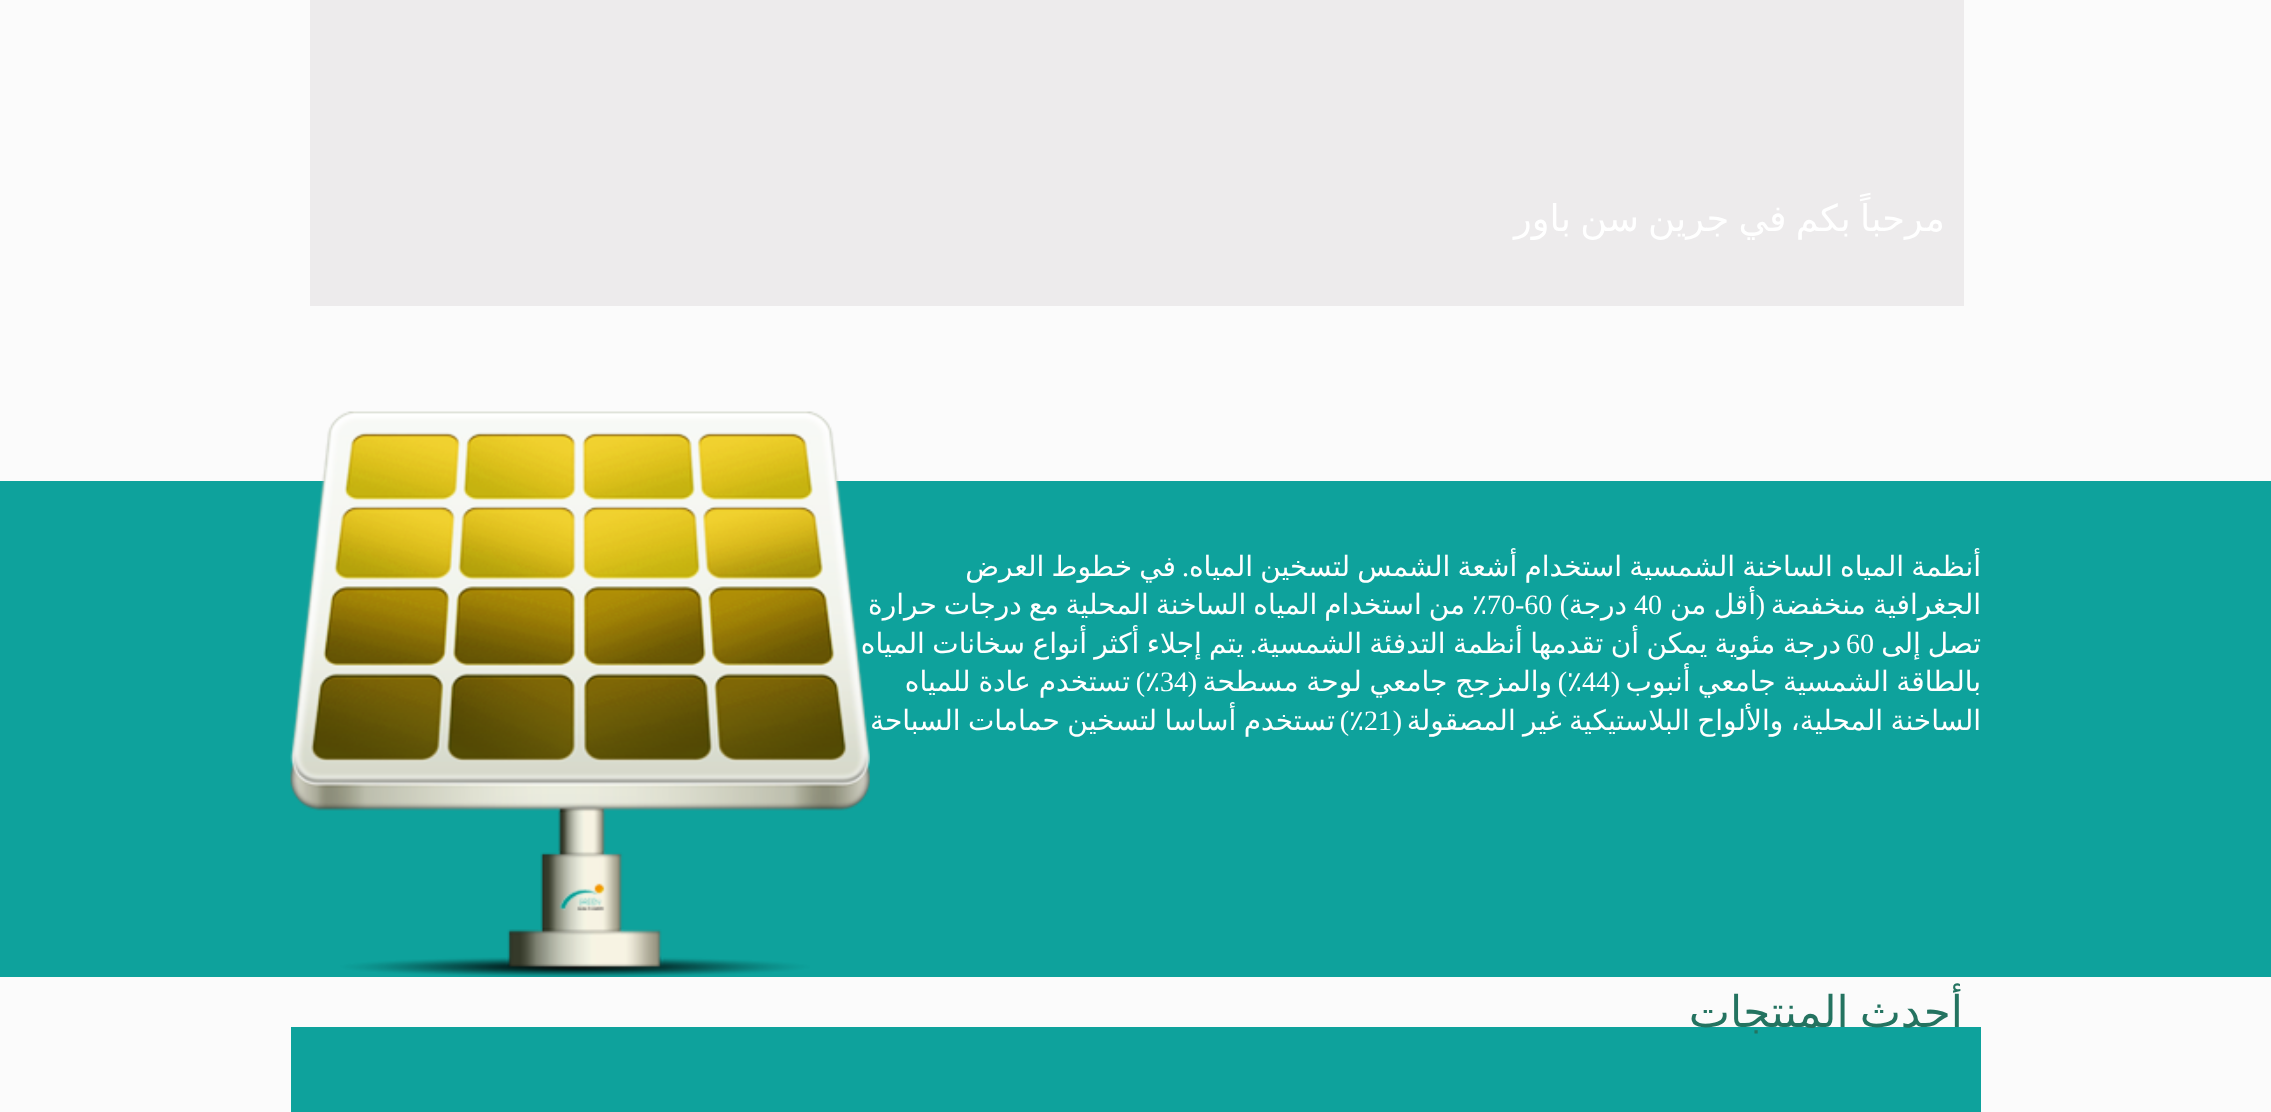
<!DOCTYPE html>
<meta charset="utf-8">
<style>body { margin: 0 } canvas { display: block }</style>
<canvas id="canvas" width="2271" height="1112"></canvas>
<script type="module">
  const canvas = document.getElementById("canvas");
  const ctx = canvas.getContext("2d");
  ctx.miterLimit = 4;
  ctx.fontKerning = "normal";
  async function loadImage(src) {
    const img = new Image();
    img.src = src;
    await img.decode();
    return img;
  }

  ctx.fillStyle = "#fbfbfb";
  ctx.fillRect(0, 0, 2271, 1112);
  ctx.fillStyle = "#edebec";
  ctx.fillRect(310, 0, 1654, 306);
  ctx.wordSpacing = "-2.5px";
  ctx.direction = "rtl";
  ctx.font = "36.75px DejaVu Sans";
  ctx.fillStyle = "#ffffff";
  ctx.fillText("مرحباً بكم في جرين سن باور", 1945, 231);
  ctx.fillStyle = "#0ea29c";
  ctx.fillRect(0, 481, 2271, 496);
  ctx.wordSpacing = "-1.75px";
  ctx.font = "28px DejaVu Sans";
  ctx.fillStyle = "#ffffff";
  ctx.fillText("أنظمة المياه الساخنة الشمسية استخدام أشعة الشمس لتسخين المياه", 1981, 576);
  ctx.wordSpacing = "0px";
  ctx.font = "28px Liberation Serif";
  ctx.fillText(".", 1189, 576);
  ctx.wordSpacing = "-1.75px";
  ctx.font = "28px DejaVu Sans";
  ctx.fillText("في خطوط العرض", 1176, 576);
  ctx.wordSpacing = "-1.5px";
  ctx.fillText("الجغرافية منخفضة", 1981, 614);
  ctx.wordSpacing = "0px";
  ctx.font = "28px Liberation Serif";
  ctx.fillText("(", 1765, 614);
  ctx.wordSpacing = "-1.5px";
  ctx.font = "28px DejaVu Sans";
  ctx.fillText("أقل من", 1756, 614);
  ctx.wordSpacing = "0px";
  ctx.direction = "ltr";
  ctx.font = "28px Liberation Serif";
  ctx.fillText("40", 1634, 614);
  ctx.direction = "rtl";
  ctx.font = "28px DejaVu Sans";
  ctx.fillText("درجة", 1627, 614);
  ctx.font = "28px Liberation Serif";
  ctx.fillText(")", 1569, 614);
  ctx.wordSpacing = "-2px";
  ctx.font = "28px DejaVu Sans";
  ctx.fillText("٪ من استخدام المياه الساخنة المحلية مع درجات حرارة", 1487, 614);
  ctx.wordSpacing = "0px";
  ctx.direction = "ltr";
  ctx.font = "28px Liberation Serif";
  ctx.fillText("70-60", 1487, 614);
  ctx.wordSpacing = "-2px";
  ctx.direction = "rtl";
  ctx.font = "28px DejaVu Sans";
  ctx.fillText("تصل إلى", 1981, 653);
  ctx.wordSpacing = "-1.5px";
  ctx.fillText("درجة مئوية يمكن أن تقدمها أنظمة التدفئة الشمسية", 1841, 653);
  ctx.wordSpacing = "0px";
  ctx.direction = "ltr";
  ctx.font = "28px Liberation Serif";
  ctx.fillText("60", 1846, 653);
  ctx.wordSpacing = "-1.5px";
  ctx.direction = "rtl";
  ctx.font = "28px DejaVu Sans";
  ctx.fillText("يتم إجلاء أكثر أنواع سخانات المياه", 1244, 653);
  ctx.wordSpacing = "0px";
  ctx.font = "28px Liberation Serif";
  ctx.fillText(".", 1257, 653);
  ctx.wordSpacing = "-1.5px";
  ctx.font = "28px DejaVu Sans";
  ctx.fillText("بالطاقة الشمسية جامعي أنبوب", 1981, 691);
  ctx.wordSpacing = "0px";
  ctx.font = "28px Liberation Serif";
  ctx.fillText("(", 1620, 691);
  ctx.direction = "ltr";
  ctx.fillText("44", 1582, 691);
  ctx.direction = "rtl";
  ctx.font = "28px DejaVu Sans";
  ctx.fillText("٪", 1582, 691);
  ctx.font = "28px Liberation Serif";
  ctx.fillText(")", 1567, 691);
  ctx.wordSpacing = "-1px";
  ctx.font = "28px DejaVu Sans";
  ctx.fillText("والمزجج جامعي لوحة مسطحة", 1552, 691);
  ctx.wordSpacing = "0px";
  ctx.font = "28px Liberation Serif";
  ctx.fillText("(", 1197, 691);
  ctx.direction = "ltr";
  ctx.fillText("34", 1160, 691);
  ctx.direction = "rtl";
  ctx.font = "28px DejaVu Sans";
  ctx.fillText("٪", 1160, 691);
  ctx.font = "28px Liberation Serif";
  ctx.fillText(")", 1145, 691);
  ctx.wordSpacing = "-1px";
  ctx.font = "28px DejaVu Sans";
  ctx.fillText("تستخدم عادة للمياه", 1130, 691);
  ctx.wordSpacing = "-1.5px";
  ctx.fillText("الساخنة المحلية، والألواح البلاستيكية غير المصقولة", 1981, 730);
  ctx.wordSpacing = "0px";
  ctx.font = "28px Liberation Serif";
  ctx.fillText("(", 1402, 730);
  ctx.direction = "ltr";
  ctx.fillText("21", 1364, 730);
  ctx.direction = "rtl";
  ctx.font = "28px DejaVu Sans";
  ctx.fillText("٪", 1364, 730);
  ctx.font = "28px Liberation Serif";
  ctx.fillText(")", 1349, 730);
  ctx.wordSpacing = "-1.5px";
  ctx.font = "28px DejaVu Sans";
  ctx.fillText("تستخدم أساسا لتسخين حمامات السباحة", 1335, 730);
  ctx.drawImage(await loadImage("img1.png"), 290, 411, 580, 566);
  ctx.fillStyle = "#0ea29c";
  ctx.fillRect(291, 1027, 1690, 85);
  ctx.wordSpacing = "-3px";
  ctx.font = "43.75px DejaVu Sans";
  ctx.fillStyle = "#247360";
  ctx.fillText("أحدث المنتجات", 1963, 1027);
</script>
